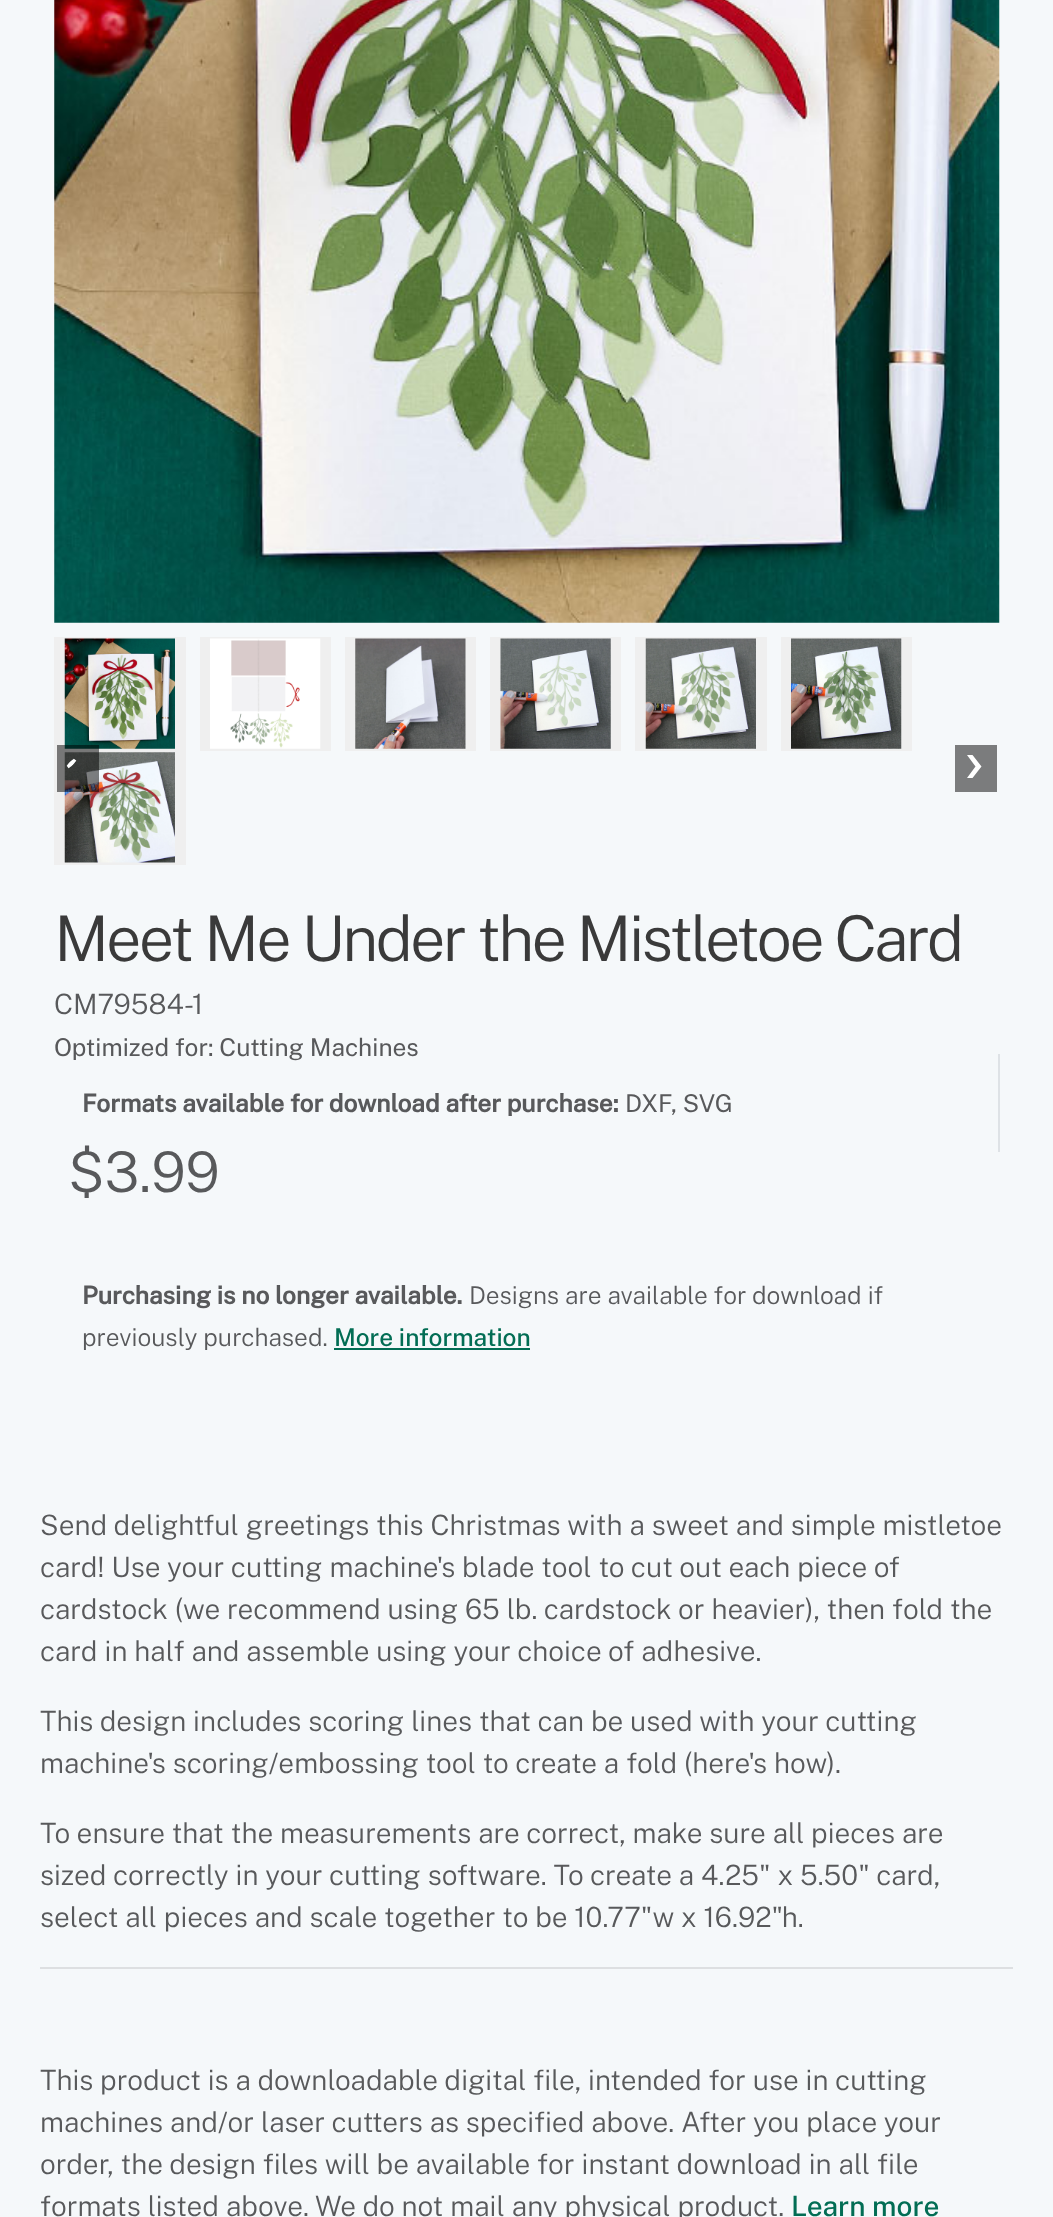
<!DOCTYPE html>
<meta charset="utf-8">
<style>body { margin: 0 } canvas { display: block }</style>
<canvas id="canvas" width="1053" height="2217"></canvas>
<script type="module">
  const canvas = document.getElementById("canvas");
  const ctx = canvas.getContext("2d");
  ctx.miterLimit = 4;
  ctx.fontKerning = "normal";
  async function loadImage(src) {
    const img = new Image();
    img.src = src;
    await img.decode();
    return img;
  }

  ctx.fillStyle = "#f5f8fa";
  ctx.fillRect(0, 0, 1053, 2217);
  ctx.drawImage(await loadImage("img1.png"), 54, 0, 946, 623);
  ctx.fillStyle = "#efefef";
  ctx.fillRect(54, 637, 132, 228);
  ctx.drawImage(await loadImage("img2.png"), 64, 638, 111, 111);
  ctx.fillRect(200, 637, 131, 114);
  ctx.drawImage(await loadImage("img3.png"), 210, 638, 111, 111);
  ctx.fillRect(345, 637, 131, 114);
  ctx.drawImage(await loadImage("img4.png"), 355, 638, 111, 111);
  ctx.fillRect(490, 637, 131, 114);
  ctx.drawImage(await loadImage("img5.png"), 500, 638, 111, 111);
  ctx.fillRect(635, 637, 132, 114);
  ctx.drawImage(await loadImage("img6.png"), 645, 638, 111, 111);
  ctx.fillRect(781, 637, 131, 114);
  ctx.drawImage(await loadImage("img7.png"), 791, 638, 111, 111);
  ctx.drawImage(await loadImage("img8.png"), 64, 752, 111, 111);
  ctx.fillStyle = "rgba(0, 0, 0, 0.5)";
  ctx.fillRect(57, 745, 42, 47);
  ctx.drawImage(await loadImage("img9.png"), 66, 758, 11, 11);
  ctx.fillStyle = "#7b7c7d";
  ctx.fillRect(955, 745, 42, 47);
  ctx.fillStyle = "#ffffff";
  ctx.beginPath();
  ctx.moveTo(967, 778);
  ctx.lineTo(975.5, 766.5);
  ctx.lineTo(967, 755);
  ctx.lineTo(972.5, 755);
  ctx.lineTo(981.5, 766.5);
  ctx.lineTo(972.5, 778);
  ctx.closePath();
  ctx.fill("evenodd");
  ctx.letterSpacing = "-2.8px";
  ctx.font = "300 63px Public Sans";
  ctx.fillStyle = "#3a3a3a";
  ctx.fillText("Meet Me Under the Mistletoe Card", 54, 961);
  ctx.letterSpacing = "0px";
  ctx.font = "300 28px Public Sans";
  ctx.fillStyle = "#58595b";
  ctx.fillText("CM79584-1", 54, 1014);
  ctx.font = "24.5px Public Sans";
  ctx.fillText("Optimized for: Cutting Machines", 54, 1056);
  ctx.fillStyle = "#dee2e6";
  ctx.fillRect(998, 1054, 2, 98);
  ctx.font = "bold 24.5px Public Sans";
  ctx.fillStyle = "#58595b";
  ctx.fillText("Formats available for download after purchase:", 82, 1112);
  ctx.font = "24.5px Public Sans";
  ctx.fillText("DXF, SVG", 625, 1112);
  ctx.font = "300 56px Public Sans";
  ctx.fillText("$3.99", 68, 1192);
  ctx.font = "bold 24.5px Public Sans";
  ctx.fillText("Purchasing is no longer available.", 82, 1304);
  ctx.font = "300 24.5px Public Sans";
  ctx.fillText("Designs are available for download if", 469, 1304);
  ctx.fillText("previously purchased.", 82, 1346);
  ctx.font = "500 24.5px Public Sans";
  ctx.fillStyle = "#026d54";
  ctx.fillText("More information", 334, 1346);
  ctx.fillRect(334, 1348, 196, 2);
  ctx.font = "300 28px Public Sans";
  ctx.fillStyle = "#58595b";
  ctx.fillText("Send delightful greetings this Christmas with a sweet and simple mistletoe", 40, 1535);
  ctx.fillText("card! Use your cutting machine's blade tool to cut out each piece of", 40, 1577);
  ctx.fillText("cardstock (we recommend using 65 lb. cardstock or heavier), then fold the", 40, 1619);
  ctx.fillText("card in half and assemble using your choice of adhesive.", 40, 1661);
  ctx.fillText("This design includes scoring lines that can be used with your cutting", 40, 1731);
  ctx.fillText("machine's scoring/embossing tool to create a fold (here's how).", 40, 1773);
  ctx.fillText("To ensure that the measurements are correct, make sure all pieces are", 40, 1843);
  ctx.fillText("sized correctly in your cutting software. To create a 4.25\" x 5.50\" card,", 40, 1885);
  ctx.fillText("select all pieces and scale together to be 10.77\"w x 16.92\"h.", 40, 1927);
  ctx.fillStyle = "#dddfe1";
  ctx.fillRect(40, 1967, 973, 2);
  ctx.fillStyle = "#58595b";
  ctx.fillText("This product is a downloadable digital file, intended for use in cutting", 40, 2090);
  ctx.fillText("machines and/or laser cutters as specified above. After you place your", 40, 2132);
  ctx.fillText("order, the design files will be available for instant download in all file", 40, 2174);
  ctx.fillText("formats listed above. We do not mail any physical product.", 40, 2216);
  ctx.font = "500 28px Public Sans";
  ctx.fillStyle = "#026d54";
  ctx.fillText("Learn more", 791, 2216);
</script>
